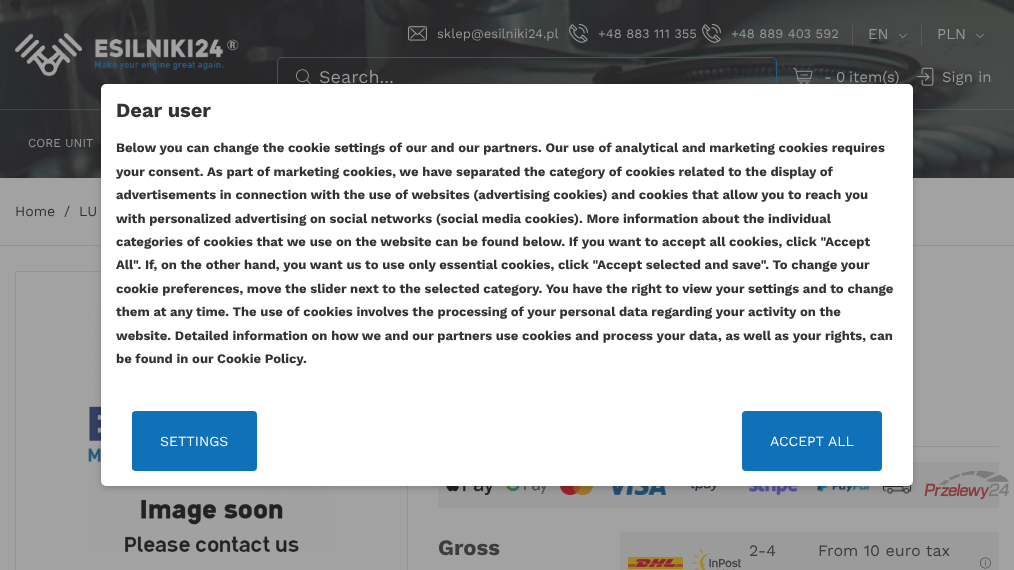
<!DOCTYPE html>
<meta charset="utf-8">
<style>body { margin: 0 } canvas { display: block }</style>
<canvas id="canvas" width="1014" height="570"></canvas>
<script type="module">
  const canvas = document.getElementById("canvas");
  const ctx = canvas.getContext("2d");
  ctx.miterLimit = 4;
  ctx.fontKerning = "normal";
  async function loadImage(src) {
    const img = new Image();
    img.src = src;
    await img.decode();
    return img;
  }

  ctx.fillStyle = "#a2a2a2";
  ctx.fillRect(0, 0, 1014, 570);
  ctx.drawImage(await loadImage("img1.png"), 0, 0, 1014, 178);
  ctx.drawImage(await loadImage("img2.png"), 15, 32, 224, 45);
  ctx.drawImage(await loadImage("img3.png"), 408, 26, 19, 15);
  ctx.font = "13px Work Sans";
  ctx.fillStyle = "#979797";
  ctx.fillText("sklep@esilniki24.pl", 437, 38);
  ctx.drawImage(await loadImage("img4.png"), 569, 23, 19, 20);
  ctx.fillText("+48 883 111 355", 598, 38);
  ctx.drawImage(await loadImage("img5.png"), 702, 23, 19, 20);
  ctx.fillText("+48 889 403 592", 731, 38);
  ctx.fillStyle = "rgba(162, 162, 162, 0.2)";
  ctx.fillRect(852, 25, 1, 21);
  ctx.font = "15px Work Sans";
  ctx.fillStyle = "#979797";
  ctx.fillText("EN", 868, 39);
  ctx.drawImage(await loadImage("img6.png"), 899, 33, 8, 5);
  ctx.fillStyle = "rgba(162, 162, 162, 0.2)";
  ctx.fillRect(921, 25, 1, 21);
  ctx.fillStyle = "#979797";
  ctx.fillText("PLN", 937, 39);
  ctx.drawImage(await loadImage("img7.png"), 976, 33, 8, 5);
  ctx.beginPath();
  ctx.roundRect(277.5, 57.5, 499, 39, 4.5);
  ctx.strokeStyle = "#2a5b7f";
  ctx.stroke();
  ctx.drawImage(await loadImage("img8.png"), 296, 69, 15, 15);
  ctx.font = "18px Work Sans";
  ctx.fillText("Search...", 319, 83);
  ctx.drawImage(await loadImage("img9.png"), 793, 67, 20, 17);
  ctx.font = "15px Work Sans";
  ctx.fillText("-", 824, 82);
  ctx.fillText("0", 836, 82);
  ctx.fillText("item(s)", 849, 82);
  ctx.drawImage(await loadImage("img10.png"), 916, 67, 18, 19);
  ctx.fillText("Sign in", 942, 82);
  ctx.fillStyle = "rgba(162, 162, 162, 0.2)";
  ctx.fillRect(0, 109, 1014, 1);
  ctx.font = "12px Work Sans";
  ctx.fillStyle = "#979797";
  ctx.fillText("CORE UNIT", 28, 147);
  ctx.fillStyle = "#949494";
  ctx.fillRect(0, 245, 1014, 1);
  ctx.font = "14px Work Sans";
  ctx.fillStyle = "#333333";
  ctx.fillText("Home", 15, 216);
  ctx.fillText("/", 64, 216);
  ctx.fillText("LU", 79, 216);
  ctx.strokeStyle = "#949494";
  ctx.strokeRect(15.5, 271.5, 392, 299);
  ctx.drawImage(await loadImage("img11.png"), 88, 306, 247, 246);
  ctx.fillStyle = "#949494";
  ctx.fillRect(913, 446, 86, 1);
  ctx.fillStyle = "#9b9b9b";
  ctx.fillRect(438, 462, 561, 46);
  ctx.drawImage(await loadImage("img12.png"), 446, 486, 46, 9);
  ctx.drawImage(await loadImage("img13.png"), 506, 486, 41, 8);
  ctx.drawImage(await loadImage("img14.png"), 560, 486, 33, 9);
  ctx.drawImage(await loadImage("img15.png"), 612, 486, 54, 9);
  ctx.drawImage(await loadImage("img16.png"), 691, 486, 26, 5);
  ctx.drawImage(await loadImage("img17.png"), 749, 486, 49, 10);
  ctx.drawImage(await loadImage("img18.png"), 817, 486, 53, 6);
  ctx.drawImage(await loadImage("img19.png"), 883, 485, 29, 9);
  ctx.drawImage(await loadImage("img20.png"), 924, 470, 85, 30);
  ctx.font = "bold 22px Work Sans";
  ctx.fillStyle = "#3c3c3c";
  ctx.fillText("Gross", 438, 555);
  ctx.fillStyle = "#9b9b9b";
  ctx.fillRect(620, 532, 379, 38);
  ctx.drawImage(await loadImage("img21.png"), 628, 557, 55, 12);
  ctx.drawImage(await loadImage("img22.png"), 691, 548, 50, 22);
  ctx.font = "16px Work Sans";
  ctx.fillStyle = "#3c3c3c";
  ctx.fillText("2-4", 749, 556);
  ctx.fillText("From 10 euro tax", 818, 556);
  ctx.drawImage(await loadImage("img23.png"), 980, 557, 11, 12);
  ctx.fillStyle = "rgba(0, 0, 0, 0.2)";
  ctx.filter = "blur(3px)";
  ctx.beginPath();
  ctx.roundRect(101, 86, 812, 402, 5);
  ctx.fill();
  ctx.filter = "none";
  ctx.fillStyle = "#ffffff";
  ctx.beginPath();
  ctx.roundRect(101, 84, 812, 402, 5);
  ctx.fill();
  ctx.font = "bold 20px Work Sans";
  ctx.fillStyle = "#333333";
  ctx.fillText("Dear user", 116, 117);
  ctx.font = "bold 13px Work Sans";
  ctx.fillText("Below you can change the cookie settings of our and our partners. Our use of analytical and marketing cookies requires", 116, 152);
  ctx.fillText("your consent. As part of marketing cookies, we have separated the category of cookies related to the display of", 116, 176);
  ctx.fillText("advertisements in connection with the use of websites (advertising cookies) and cookies that allow you to reach you", 116, 199);
  ctx.fillText("with personalized advertising on social networks (social media cookies). More information about the individual", 116, 223);
  ctx.fillText("categories of cookies that we use on the website can be found below. If you want to accept all cookies, click \"Accept", 116, 246);
  ctx.fillText("All\". If, on the other hand, you want us to use only essential cookies, click \"Accept selected and save\". To change your", 116, 269);
  ctx.fillText("cookie preferences, move the slider next to the selected category. You have the right to view your settings and to change", 116, 293);
  ctx.fillText("them at any time. The use of cookies involves the processing of your personal data regarding your activity on the", 116, 316);
  ctx.fillText("website. Detailed information on how we and our partners use cookies and process your data, as well as your rights, can", 116, 340);
  ctx.fillText("be found in our Cookie Policy.", 116, 363);
  ctx.fillStyle = "#1071b9";
  ctx.beginPath();
  ctx.roundRect(132, 411, 125, 60, 4);
  ctx.fill();
  ctx.save();
  ctx.beginPath();
  ctx.roundRect(132, 411, 125, 60, 4);
  ctx.clip();
  ctx.fillRect(132, 411, 1, 60);
  ctx.restore();
  ctx.font = "14px Work Sans";
  ctx.fillStyle = "#ffffff";
  ctx.fillText("SETTINGS", 160, 446);
  ctx.fillStyle = "#1071b9";
  ctx.beginPath();
  ctx.roundRect(742, 411, 140, 60, 4);
  ctx.fill();
  ctx.fillStyle = "#ffffff";
  ctx.fillText("ACCEPT ALL", 770, 446);
</script>
